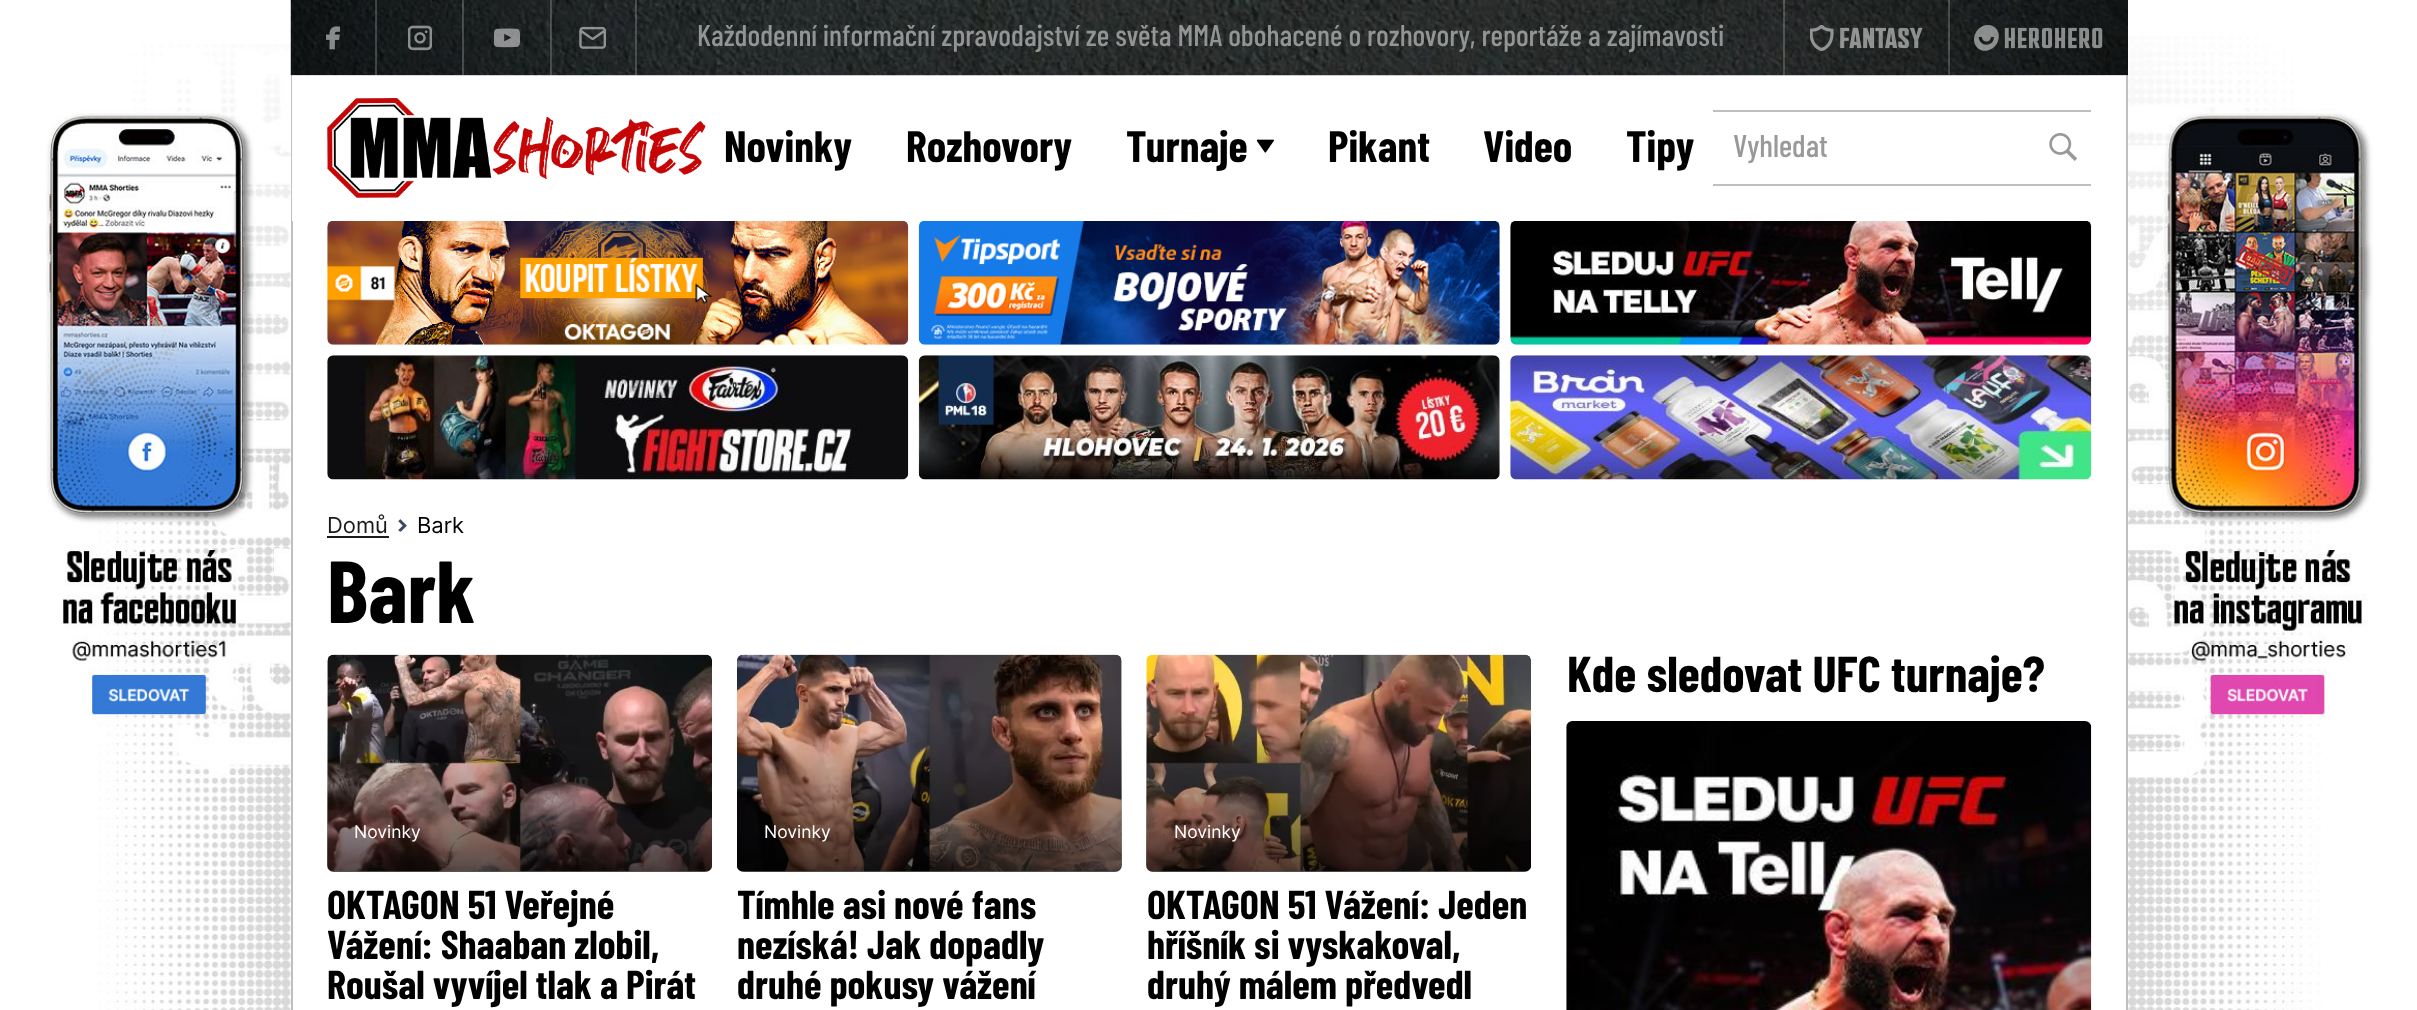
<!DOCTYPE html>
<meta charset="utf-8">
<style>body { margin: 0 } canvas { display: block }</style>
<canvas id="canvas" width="2417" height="1010"></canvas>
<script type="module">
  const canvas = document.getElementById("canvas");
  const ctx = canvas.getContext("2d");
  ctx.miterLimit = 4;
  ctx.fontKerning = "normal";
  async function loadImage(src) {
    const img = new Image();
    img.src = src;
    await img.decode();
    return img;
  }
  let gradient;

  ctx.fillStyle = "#ffffff";
  ctx.fillRect(0, 0, 2417, 1010);
  ctx.fillStyle = "#bfbfbf";
  ctx.fillRect(2126, 75, 2, 935);
  ctx.fillRect(291, 75, 2, 935);
  ctx.fillStyle = "#ffffff";
  ctx.fillRect(292, 75, 1, 146);
  ctx.drawImage(await loadImage("img1.png"), 327, 98, 379, 100);
  ctx.fillStyle = "#000000";
  ctx.fillRect(291, 0, 1837, 75);
  ctx.drawImage(await loadImage("img22.png"), 46, 44, 245, 966);
  ctx.drawImage(await loadImage("img2.png"), 290, 0, 1838, 76);
  ctx.fillStyle = "rgba(255, 255, 255, 0.2)";
  ctx.fillRect(375, 0, 2, 75);
  ctx.drawImage(await loadImage("img3.png"), 326, 26, 14, 24);
  ctx.fillRect(462, 0, 2, 75);
  ctx.drawImage(await loadImage("img4.png"), 408, 25, 24, 26);
  ctx.fillRect(550, 0, 2, 75);
  ctx.drawImage(await loadImage("img5.png"), 494, 28, 26, 20);
  ctx.fillRect(635, 0, 2, 75);
  ctx.drawImage(await loadImage("img6.png"), 579, 26, 27, 23);
  ctx.font = "500 29.95px Barlow Condensed";
  ctx.fillStyle = "#939595";
  ctx.fillText("Každodenní informační zpravodajství ze světa MMA obohacené o rozhovory, reportáže a zajímavosti", 697, 46);
  ctx.fillStyle = "rgba(255, 255, 255, 0.2)";
  ctx.fillRect(1783, 0, 2, 75);
  ctx.drawImage(await loadImage("img7.png"), 1810, 25, 113, 26);
  ctx.fillRect(1948, 0, 2, 75);
  ctx.drawImage(await loadImage("img8.png"), 1974, 25, 129, 26);
  ctx.font = "bold 44px Barlow Condensed";
  ctx.fillStyle = "#000000";
  ctx.fillText("Novinky", 724, 162);
  ctx.fillText("Rozhovory", 906, 162);
  ctx.fillText("Turnaje", 1126, 162);
  ctx.drawImage(await loadImage("img9.png"), 1257, 139, 17, 14);
  ctx.fillText("Pikant", 1328, 162);
  ctx.fillText("Video", 1483, 162);
  ctx.fillText("Tipy", 1626, 162);
  ctx.fillStyle = "#bfbfbf";
  ctx.fillRect(1713, 110, 378, 2);
  ctx.fillRect(1713, 184, 378, 2);
  ctx.save();
  ctx.beginPath();
  ctx.rect(1733, 135, 290, 31);
  ctx.clip();
  ctx.font = "500 31.5px Barlow Condensed";
  ctx.fillStyle = "#999999";
  ctx.fillText("Vyhledat", 1733, 157);
  ctx.restore();
  ctx.drawImage(await loadImage("img10.png"), 2049, 133, 28, 28);
  ctx.drawImage(await loadImage("img11.png"), 327, 221, 582, 124);
  ctx.drawImage(await loadImage("img12.png"), 918, 221, 582, 124);
  ctx.drawImage(await loadImage("img13.png"), 1510, 221, 582, 124);
  ctx.drawImage(await loadImage("img14.png"), 327, 355, 582, 125);
  ctx.drawImage(await loadImage("img15.png"), 918, 355, 582, 125);
  ctx.drawImage(await loadImage("img16.png"), 1510, 355, 582, 125);
  ctx.font = "22px Inter";
  ctx.fillStyle = "#1a1a1a";
  ctx.fillText("Domů", 327, 533);
  ctx.fillRect(327, 536, 62, 2);
  ctx.drawImage(await loadImage("img17.png"), 398, 519, 9, 13);
  ctx.fillStyle = "#000000";
  ctx.fillText("Bark", 417, 533);
  ctx.font = "bold 88px Barlow Condensed";
  ctx.fillText("Bark", 327, 623);
  ctx.font = "bold 50.5px Barlow Condensed";
  ctx.fillText("Kde sledovat UFC turnaje?", 1567, 692);
  ctx.drawImage(await loadImage("img18.png"), 1566, 721, 526, 289);
  ctx.drawImage(await loadImage("img19.png"), 327, 654, 385, 218);
  gradient = ctx.createLinearGradient(520, 872, 520, 719);
  gradient.addColorStop(0, "rgba(0, 0, 0, 0.65)");
  gradient.addColorStop(1, "rgba(0, 0, 0, 0)");
  ctx.fillStyle = gradient;
  ctx.beginPath();
  ctx.roundRect(327, 719, 385, 153, [0, 0, 7, 7]);
  ctx.fill();
  ctx.font = "17.5px Inter";
  ctx.fillStyle = "#ffffff";
  ctx.fillText("Novinky", 354, 838);
  ctx.font = "bold 40.25px Barlow Condensed";
  ctx.fillStyle = "#000000";
  ctx.fillText("OKTAGON 51 Veřejné", 327, 919);
  ctx.fillText("Vážení: Shaaban zlobil,", 327, 959);
  ctx.fillText("Roušal vyvíjel tlak a Pirát", 327, 999);
  ctx.drawImage(await loadImage("img20.png"), 737, 654, 385, 218);
  gradient = ctx.createLinearGradient(929, 872, 929, 719);
  gradient.addColorStop(0, "rgba(0, 0, 0, 0.65)");
  gradient.addColorStop(1, "rgba(0, 0, 0, 0)");
  ctx.fillStyle = gradient;
  ctx.beginPath();
  ctx.roundRect(737, 719, 385, 153, [0, 0, 7, 7]);
  ctx.fill();
  ctx.font = "17.5px Inter";
  ctx.fillStyle = "#ffffff";
  ctx.fillText("Novinky", 764, 838);
  ctx.font = "bold 40.25px Barlow Condensed";
  ctx.fillStyle = "#000000";
  ctx.fillText("Tímhle asi nové fans", 737, 919);
  ctx.fillText("nezíská! Jak dopadly", 737, 959);
  ctx.fillText("druhé pokusy vážení", 737, 999);
  ctx.drawImage(await loadImage("img21.png"), 1146, 654, 385, 218);
  gradient = ctx.createLinearGradient(1339, 872, 1339, 719);
  gradient.addColorStop(0, "rgba(0, 0, 0, 0.65)");
  gradient.addColorStop(1, "rgba(0, 0, 0, 0)");
  ctx.fillStyle = gradient;
  ctx.beginPath();
  ctx.roundRect(1146, 719, 385, 153, [0, 0, 7, 7]);
  ctx.fill();
  ctx.font = "17.5px Inter";
  ctx.fillStyle = "#ffffff";
  ctx.fillText("Novinky", 1174, 838);
  ctx.font = "bold 40.25px Barlow Condensed";
  ctx.fillStyle = "#000000";
  ctx.fillText("OKTAGON 51 Vážení: Jeden", 1147, 919);
  ctx.fillText("hříšník si vyskakoval,", 1147, 959);
  ctx.fillText("druhý málem předvedl", 1147, 999);
  ctx.drawImage(await loadImage("img23.png"), 2128, 36, 245, 974);
</script>
